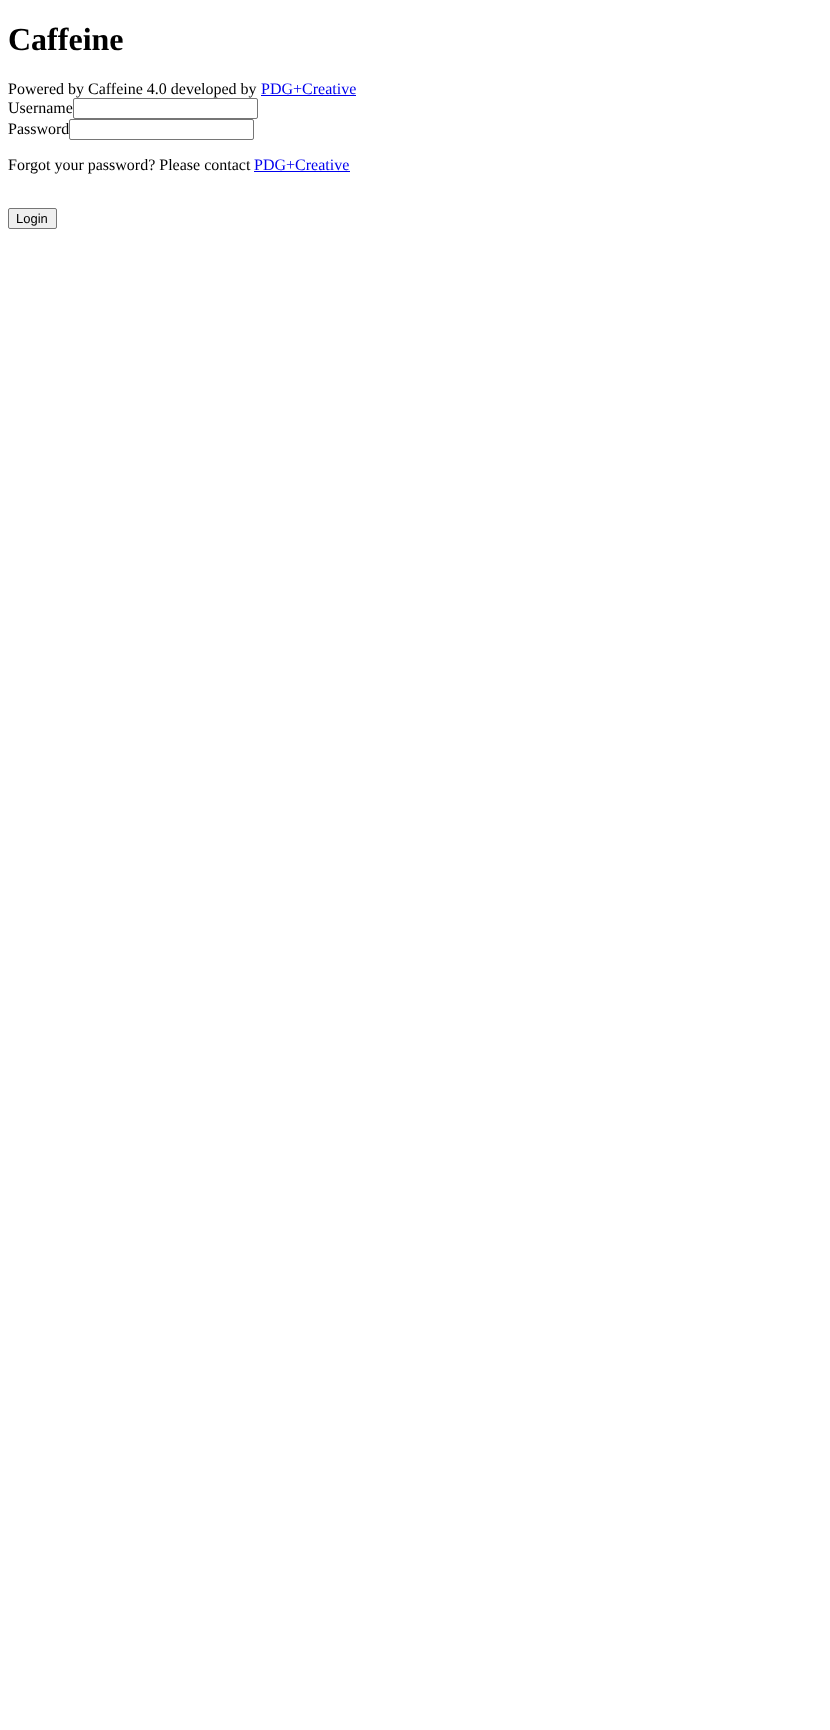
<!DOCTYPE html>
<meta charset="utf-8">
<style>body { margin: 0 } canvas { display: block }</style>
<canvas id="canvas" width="830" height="1730"></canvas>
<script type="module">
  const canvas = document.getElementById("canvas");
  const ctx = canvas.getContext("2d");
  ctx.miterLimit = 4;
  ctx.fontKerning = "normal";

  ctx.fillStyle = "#ffffff";
  ctx.fillRect(0, 0, 830, 1730);
  ctx.font = "bold 32px Liberation Serif";
  ctx.fillStyle = "#000000";
  ctx.fillText("Caffeine", 8, 50);
  ctx.font = "16px Liberation Serif";
  ctx.fillText("Powered by Caffeine 4.0 developed by", 8, 94);
  ctx.fillStyle = "#0000ee";
  ctx.fillText("PDG+Creative", 261, 94);
  ctx.fillRect(261, 95, 95, 1);
  ctx.fillStyle = "#000000";
  ctx.fillText("Username", 8, 113);
  ctx.beginPath();
  ctx.roundRect(73.5, 98.5, 184, 20, 1.5);
  ctx.strokeStyle = "#767676";
  ctx.stroke();
  ctx.fillText("Password", 8, 134);
  ctx.fillStyle = "#ffffff";
  ctx.beginPath();
  ctx.roundRect(69.5, 119.5, 184, 20, 1.5);
  ctx.fill();
  ctx.stroke();
  ctx.fillStyle = "#000000";
  ctx.fillText("Forgot your password? Please contact", 8, 170);
  ctx.fillStyle = "#0000ee";
  ctx.fillText("PDG+Creative", 254, 170);
  ctx.fillRect(254, 171, 96, 1);
  ctx.fillStyle = "#efefef";
  ctx.beginPath();
  ctx.roundRect(8.5, 208.5, 48, 20, 1.5);
  ctx.fill();
  ctx.stroke();
  ctx.font = "13px Liberation Sans";
  ctx.fillStyle = "#000000";
  ctx.fillText("Login", 16, 223);
</script>
